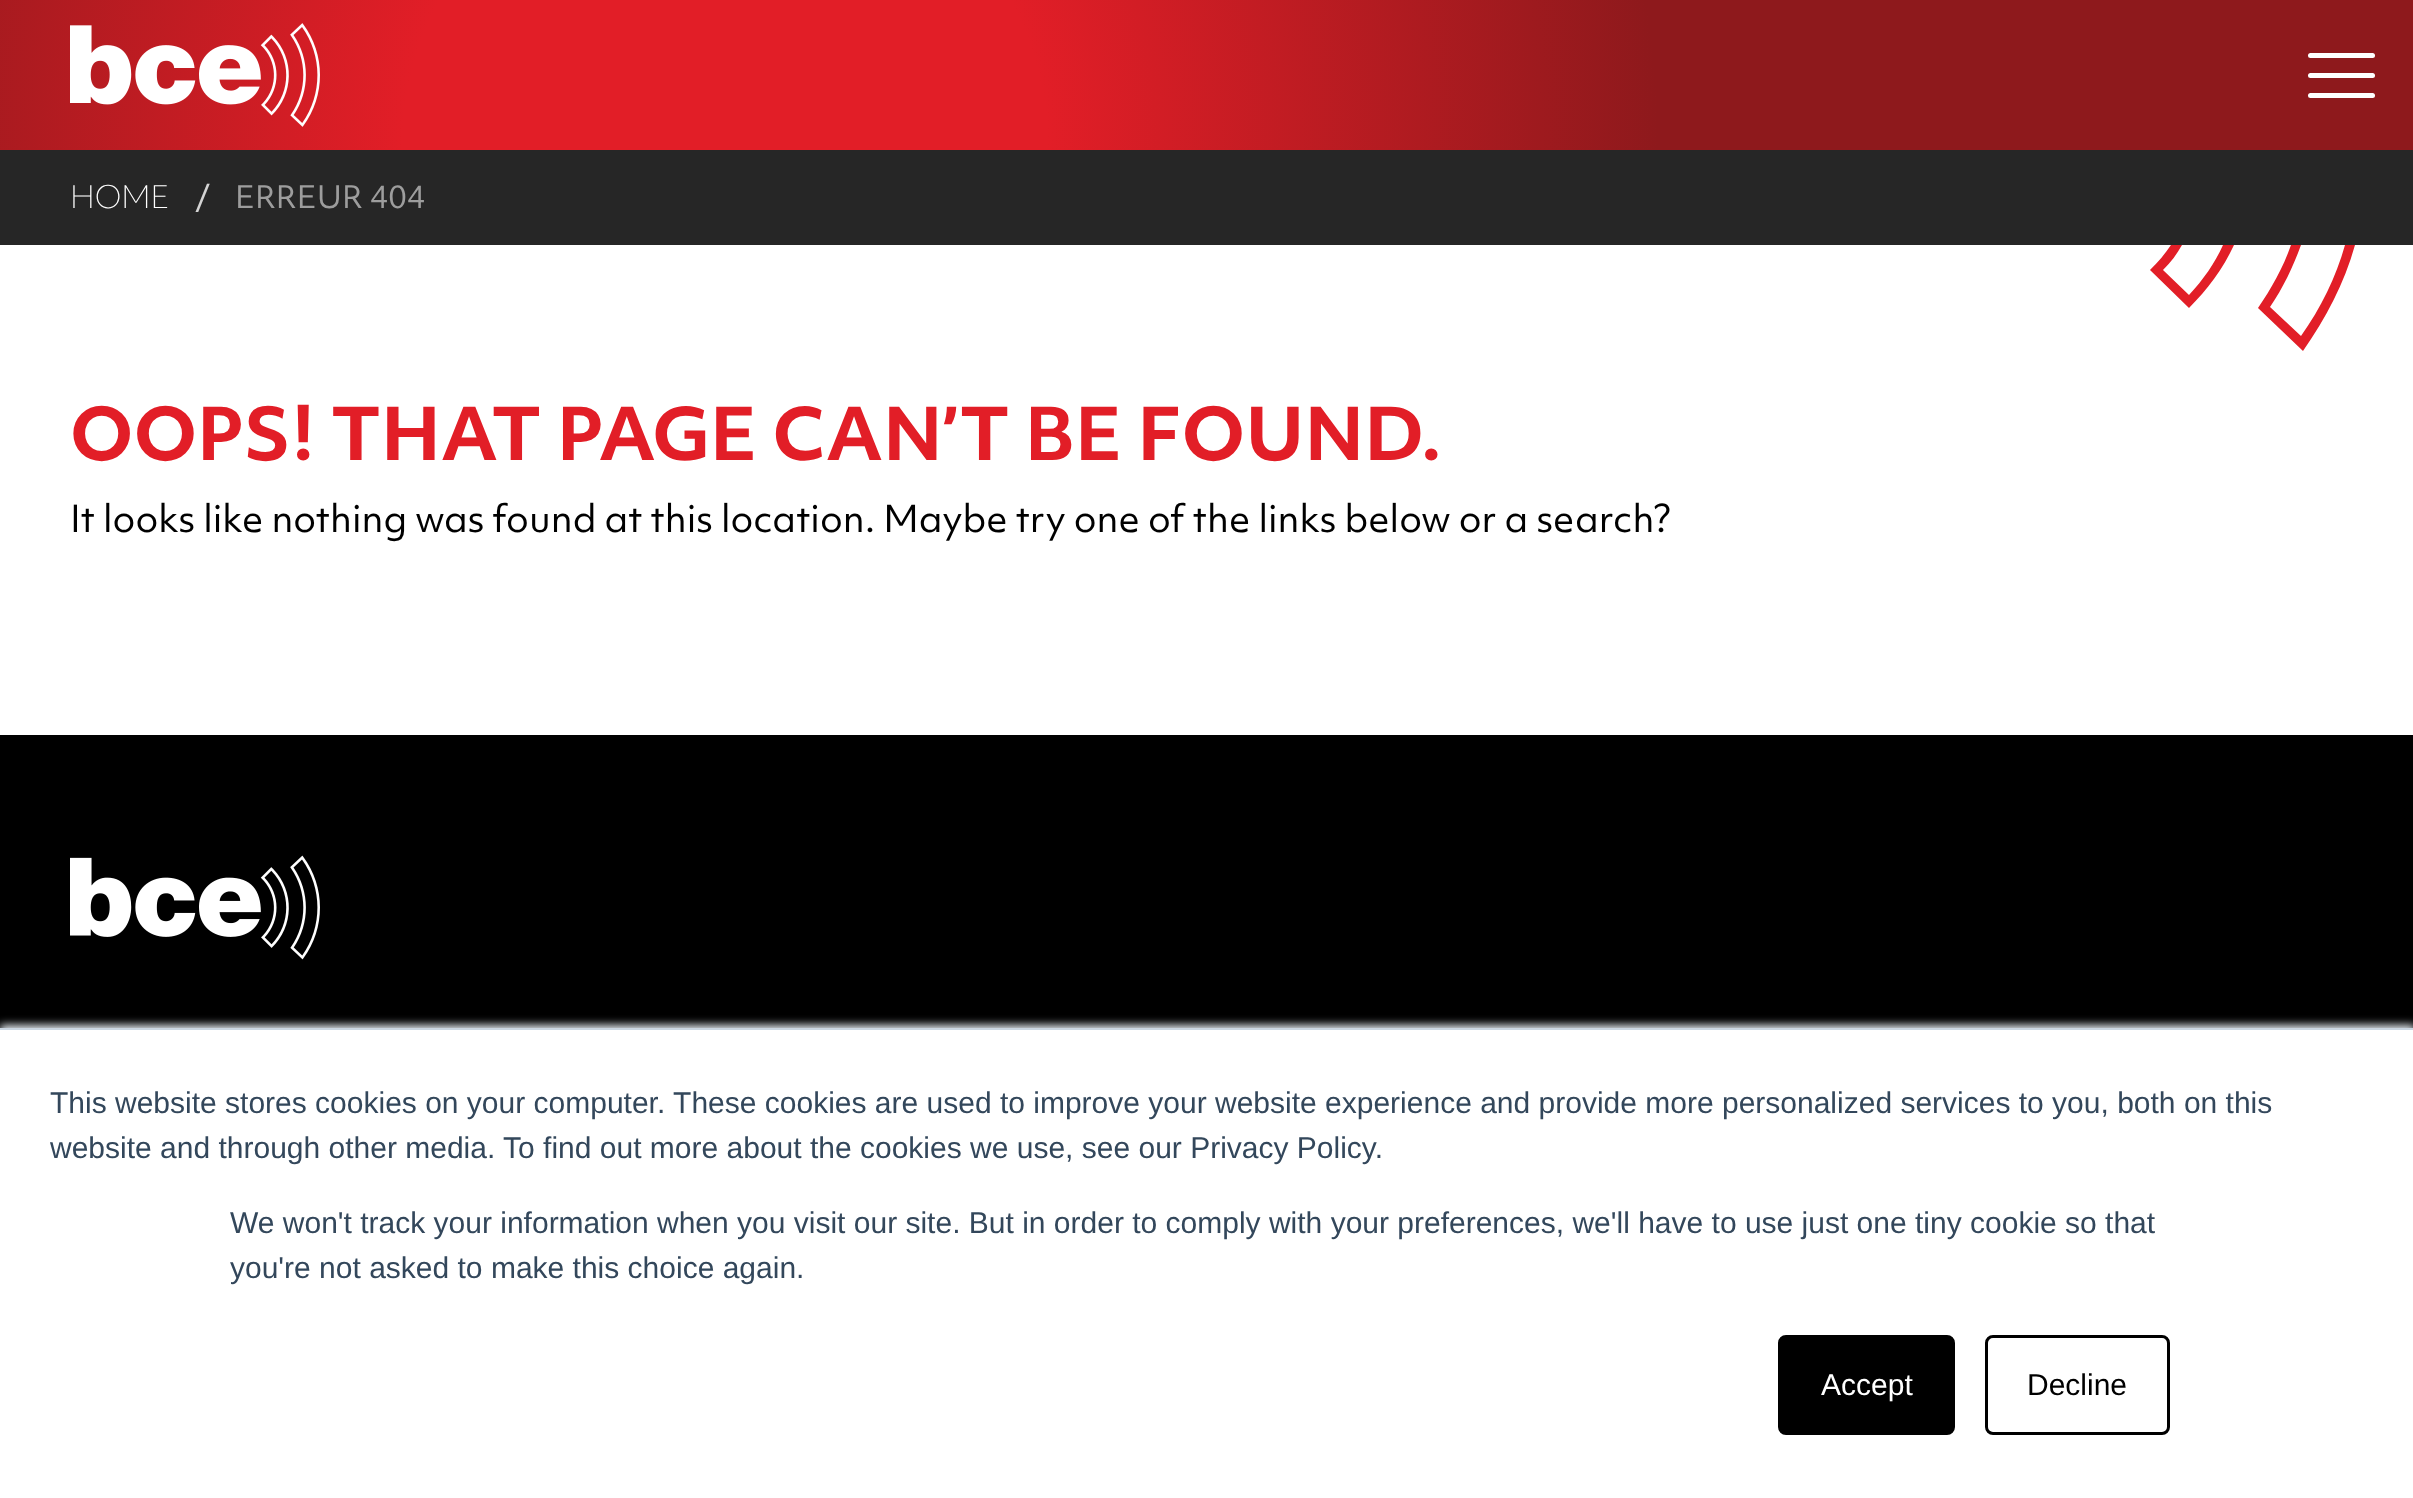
<!DOCTYPE html>
<meta charset="utf-8">
<style>body { margin: 0 } canvas { display: block }</style>
<canvas id="canvas" width="2413" height="1498"></canvas>
<script type="module">
  const canvas = document.getElementById("canvas");
  const ctx = canvas.getContext("2d");
  ctx.miterLimit = 4;
  ctx.fontKerning = "normal";
  async function loadImage(src) {
    const img = new Image();
    img.src = src;
    await img.decode();
    return img;
  }
  let gradient;

  ctx.fillStyle = "#ffffff";
  ctx.fillRect(0, 0, 2413, 1498);
  gradient = ctx.createRadialGradient(725, 150, 0, 725, 150, 1697);
  gradient.addColorStop(0.19, "#e21e27");
  gradient.addColorStop(0.55, "#8e191c");
  ctx.fillStyle = gradient;
  ctx.fillRect(0, 0, 2413, 150);
  ctx.drawImage(await loadImage("img1.png"), 70, 23, 250, 104);
  ctx.fillStyle = "#ffffff";
  ctx.beginPath();
  ctx.roundRect(2308, 53, 67, 5, 2.5);
  ctx.fill();
  ctx.beginPath();
  ctx.roundRect(2308, 73, 67, 5, 2.5);
  ctx.fill();
  ctx.beginPath();
  ctx.roundRect(2308, 93, 67, 5, 2.5);
  ctx.fill();
  ctx.fillStyle = "#262626";
  ctx.fillRect(0, 150, 2413, 95);
  ctx.font = "100 30px 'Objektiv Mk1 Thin'";
  ctx.fillStyle = "#ffffff";
  ctx.fillText("HOME", 70, 208);
  ctx.font = "30px 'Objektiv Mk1'";
  ctx.fillStyle = "#d4d4d4";
  ctx.fillText("/", 195, 208);
  ctx.fillStyle = "#9d9d9d";
  ctx.fillText("ERREUR 404", 235, 208);
  ctx.fillStyle = "#e21e27";
  ctx.beginPath();
  ctx.moveTo(2345, 245);
  ctx.bezierCurveTo(2336, 277, 2321, 308, 2301, 336);
  ctx.lineTo(2270, 307);
  ctx.bezierCurveTo(2283, 288, 2293, 267, 2301, 245);
  ctx.lineTo(2291, 245);
  ctx.bezierCurveTo(2283, 268, 2271, 289, 2258, 308);
  ctx.lineTo(2303, 351);
  ctx.bezierCurveTo(2326, 318, 2344, 284, 2355, 245);
  ctx.closePath();
  ctx.fill();
  ctx.beginPath();
  ctx.moveTo(2189, 295);
  ctx.lineTo(2163, 270);
  ctx.bezierCurveTo(2171, 262, 2177, 254, 2182, 245);
  ctx.lineTo(2171, 245);
  ctx.bezierCurveTo(2165, 254, 2158, 262, 2150, 270);
  ctx.lineTo(2189, 308);
  ctx.bezierCurveTo(2207, 290, 2223, 269, 2234, 245);
  ctx.lineTo(2223, 245);
  ctx.bezierCurveTo(2215, 263, 2203, 280, 2189, 295);
  ctx.closePath();
  ctx.fill();
  ctx.font = "bold 70px 'Objektiv Mk1'";
  ctx.fillText("OOPS! THAT PAGE CAN’T BE FOUND.", 70, 460);
  ctx.font = "36px 'Objektiv Mk1'";
  ctx.fillStyle = "#000000";
  ctx.fillText("It looks like nothing was found at this location. Maybe try one of the links below or a search?", 70, 532);
  ctx.fillRect(0, 735, 2413, 293);
  ctx.drawImage(await loadImage("img2.png"), 70, 855, 250, 105);
  ctx.fillStyle = "#eaf0f6";
  ctx.filter = "blur(4px)";
  ctx.beginPath();
  ctx.rect(0, 1025, 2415, 473);
  ctx.fill();
  ctx.filter = "none";
  ctx.fillStyle = "#cbd6e2";
  ctx.fillRect(0, 1028, 2413, 2);
  ctx.fillStyle = "#ffffff";
  ctx.fillRect(0, 1030, 2413, 468);
  ctx.font = "30px Liberation Sans";
  ctx.fillStyle = "#33475b";
  ctx.fillText("This website stores cookies on your computer. These cookies are used to improve your website experience and provide more personalized services to you, both on this", 50, 1113);
  ctx.fillText("website and through other media. To find out more about the cookies we use, see our Privacy Policy.", 50, 1158);
  ctx.fillText("We won't track your information when you visit our site. But in order to comply with your preferences, we'll have to use just one tiny cookie so that", 230, 1233);
  ctx.fillText("you're not asked to make this choice again.", 230, 1278);
  ctx.fillStyle = "#000000";
  ctx.beginPath();
  ctx.roundRect(1779.5, 1336.5, 174, 97, 6.5);
  ctx.fill();
  ctx.strokeStyle = "#000000";
  ctx.lineWidth = 3;
  ctx.stroke();
  ctx.fillStyle = "#ffffff";
  ctx.fillText("Accept", 1821, 1395);
  ctx.beginPath();
  ctx.roundRect(1986.5, 1336.5, 182, 97, 6.5);
  ctx.stroke();
  ctx.fillStyle = "#000000";
  ctx.fillText("Decline", 2027, 1395);
</script>
